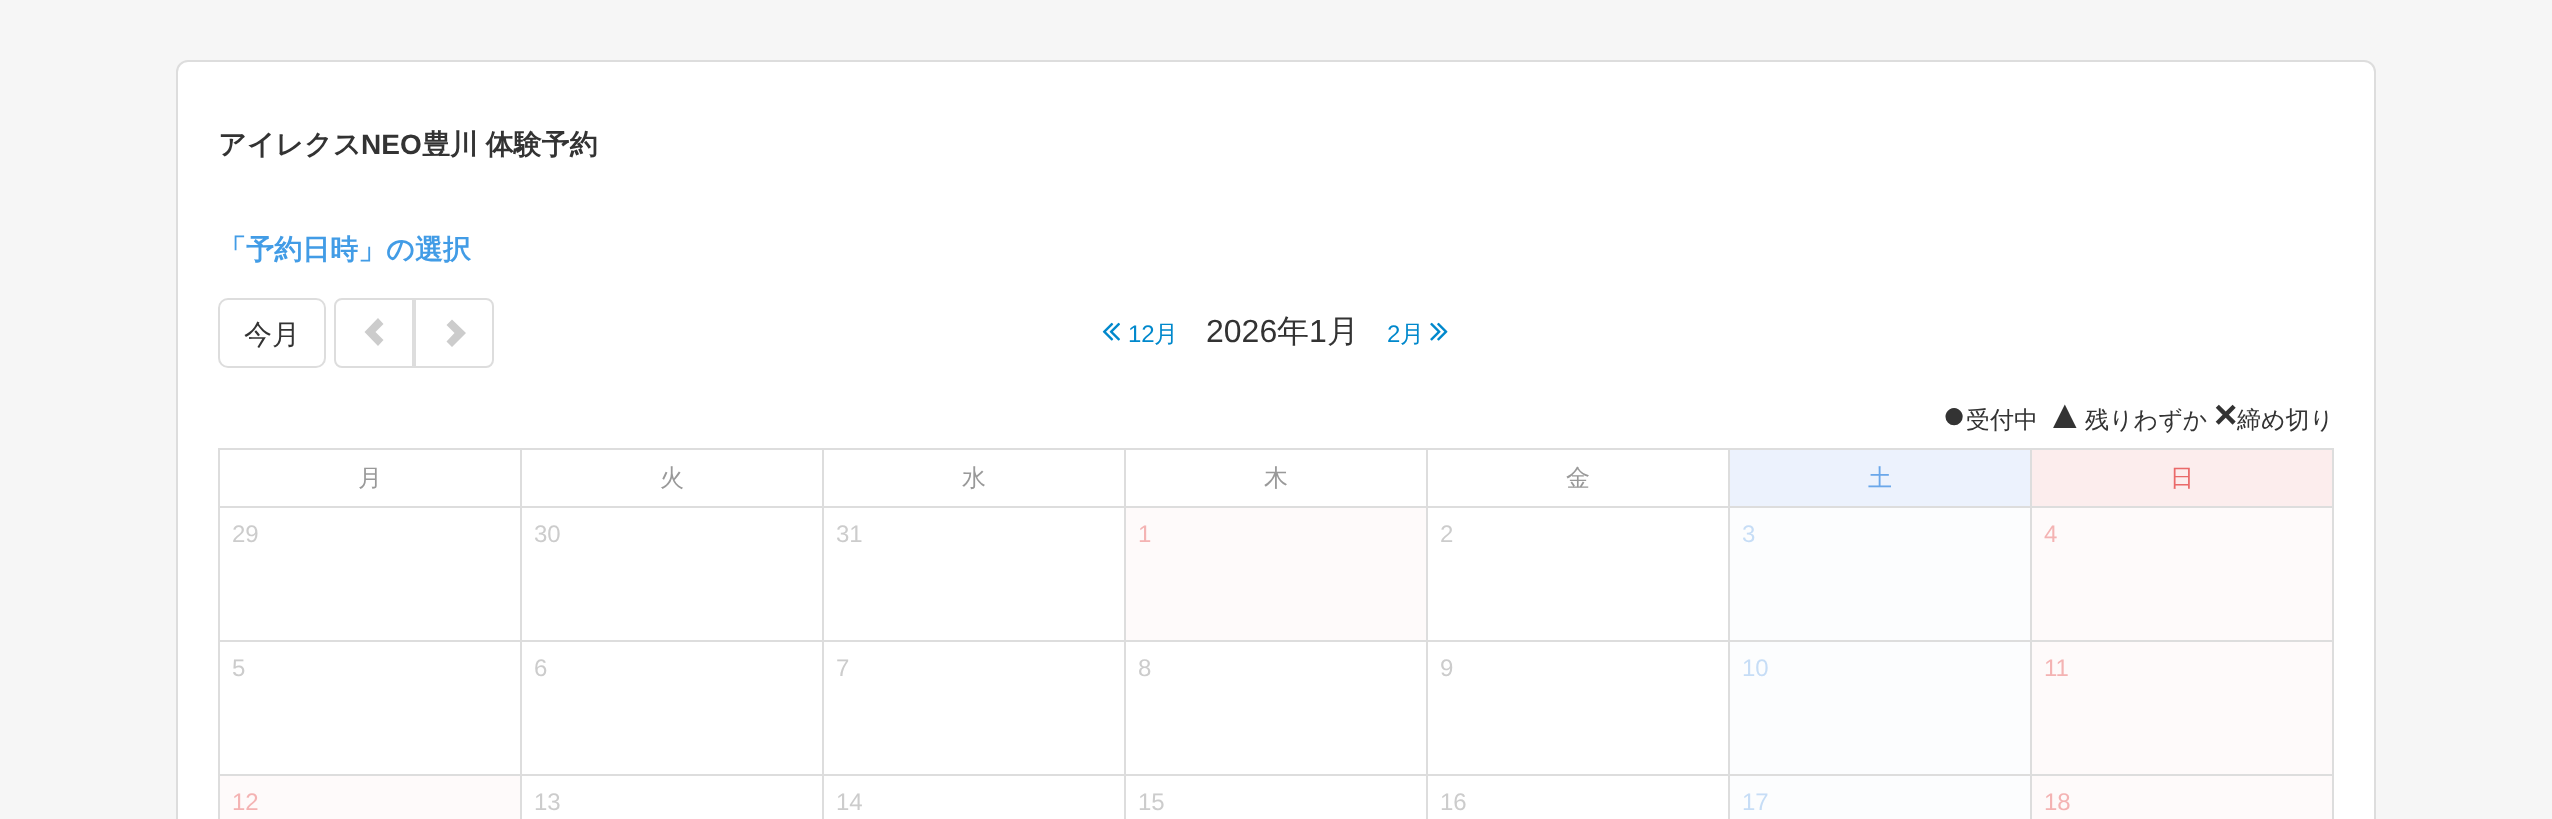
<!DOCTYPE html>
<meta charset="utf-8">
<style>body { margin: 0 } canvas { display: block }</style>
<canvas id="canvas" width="2552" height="819"></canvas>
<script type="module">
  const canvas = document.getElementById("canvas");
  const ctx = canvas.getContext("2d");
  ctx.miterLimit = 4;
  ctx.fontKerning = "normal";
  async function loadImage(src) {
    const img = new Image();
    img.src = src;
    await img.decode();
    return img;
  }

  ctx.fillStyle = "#f6f6f6";
  ctx.fillRect(0, 0, 2552, 819);
  ctx.fillStyle = "#ffffff";
  ctx.beginPath();
  ctx.roundRect(177, 61, 2198, 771, 11);
  ctx.fill();
  ctx.strokeStyle = "#dddddd";
  ctx.lineWidth = 2;
  ctx.stroke();
  ctx.font = "bold 28px WenQuanYi Zen Hei";
  ctx.fillStyle = "#333333";
  ctx.fillText("アイレクス", 218, 154);
  ctx.font = "bold 28px Liberation Sans";
  ctx.fillText("NEO", 361, 154);
  ctx.wordSpacing = "-1px";
  ctx.font = "bold 28px WenQuanYi Zen Hei";
  ctx.fillText("豊川 体験予約", 422, 154);
  ctx.wordSpacing = "0px";
  ctx.fillStyle = "#429ce6";
  ctx.fillText("「予約日時」の選択", 218, 259);
  ctx.beginPath();
  ctx.roundRect(219, 299, 106, 68, 9);
  ctx.stroke();
  ctx.font = "500 28px WenQuanYi Zen Hei";
  ctx.fillStyle = "#333333";
  ctx.fillText("今月", 244, 344);
  ctx.beginPath();
  ctx.roundRect(335, 299, 78, 68, [7, 0, 0, 7]);
  ctx.stroke();
  ctx.fillStyle = "#cccccc";
  ctx.beginPath();
  ctx.moveTo(364.5, 332);
  ctx.lineTo(378, 346);
  ctx.lineTo(383.5, 340);
  ctx.lineTo(375.5, 332);
  ctx.lineTo(383.5, 324);
  ctx.lineTo(378, 318);
  ctx.closePath();
  ctx.fill();
  ctx.beginPath();
  ctx.roundRect(415, 299, 78, 68, [0, 7, 7, 0]);
  ctx.stroke();
  ctx.beginPath();
  ctx.moveTo(446.5, 341.5);
  ctx.lineTo(454.5, 333);
  ctx.lineTo(446.5, 325);
  ctx.lineTo(452, 319.5);
  ctx.lineTo(466, 333);
  ctx.lineTo(452, 347);
  ctx.closePath();
  ctx.fill();
  ctx.drawImage(await loadImage("img1.png"), 1102, 322, 18, 19);
  ctx.font = "24px Liberation Sans";
  ctx.fillStyle = "#0088cc";
  ctx.fillText("12", 1128, 342);
  ctx.font = "500 24px WenQuanYi Zen Hei";
  ctx.fillText("月", 1154, 342);
  ctx.font = "32px Liberation Sans";
  ctx.fillStyle = "#333333";
  ctx.fillText("2026", 1206, 342);
  ctx.font = "500 32px WenQuanYi Zen Hei";
  ctx.fillText("年", 1277, 342);
  ctx.font = "32px Liberation Sans";
  ctx.fillText("1", 1309, 342);
  ctx.font = "500 32px WenQuanYi Zen Hei";
  ctx.fillText("月", 1327, 342);
  ctx.font = "24px Liberation Sans";
  ctx.fillStyle = "#0088cc";
  ctx.fillText("2", 1387, 342);
  ctx.font = "500 24px WenQuanYi Zen Hei";
  ctx.fillText("月", 1400, 342);
  ctx.drawImage(await loadImage("img2.png"), 1430, 322, 18, 19);
  ctx.font = "bold 40px Liberation Sans";
  ctx.fillStyle = "#333333";
  ctx.fillText("●", 1942, 428);
  ctx.font = "500 24px WenQuanYi Zen Hei";
  ctx.fillText("受付中", 1966, 428);
  ctx.font = "bold 40px Liberation Sans";
  ctx.fillText("▲", 2045, 428);
  ctx.font = "500 24px WenQuanYi Zen Hei";
  ctx.fillText("残りわずか", 2085, 428);
  ctx.font = "bold 40px Liberation Sans";
  ctx.fillText("×", 2214, 428);
  ctx.font = "500 24px WenQuanYi Zen Hei";
  ctx.fillText("締め切り", 2237, 428);
  ctx.fillStyle = "#dddddd";
  ctx.fillRect(218, 448, 2116, 2);
  ctx.fillRect(2332, 448, 2, 371);
  ctx.fillRect(218, 506, 2114, 2);
  ctx.fillRect(218, 450, 2, 58);
  ctx.fillStyle = "#999999";
  ctx.fillText("月", 358, 486);
  ctx.fillStyle = "#dddddd";
  ctx.fillRect(520, 450, 2, 58);
  ctx.fillStyle = "#999999";
  ctx.fillText("火", 660, 486);
  ctx.fillStyle = "#dddddd";
  ctx.fillRect(822, 450, 2, 58);
  ctx.fillStyle = "#999999";
  ctx.fillText("水", 962, 486);
  ctx.fillStyle = "#dddddd";
  ctx.fillRect(1124, 450, 2, 58);
  ctx.fillStyle = "#999999";
  ctx.fillText("木", 1264, 486);
  ctx.fillStyle = "#dddddd";
  ctx.fillRect(1426, 450, 2, 58);
  ctx.fillStyle = "#999999";
  ctx.fillText("金", 1566, 486);
  ctx.fillStyle = "#ecf2fd";
  ctx.fillRect(1730, 450, 300, 56);
  ctx.fillStyle = "#dddddd";
  ctx.fillRect(1728, 450, 2, 58);
  ctx.fillStyle = "#6aa7ea";
  ctx.fillText("土", 1868, 486);
  ctx.fillStyle = "#fceded";
  ctx.fillRect(2032, 450, 300, 56);
  ctx.fillStyle = "#dddddd";
  ctx.fillRect(2030, 450, 2, 58);
  ctx.fillStyle = "#ea6a6a";
  ctx.fillText("日", 2170, 486);
  ctx.fillStyle = "#dddddd";
  ctx.fillRect(218, 640, 2114, 2);
  ctx.fillRect(218, 508, 2, 134);
  ctx.font = "24px Liberation Sans";
  ctx.fillStyle = "#cccccc";
  ctx.fillText("29", 232, 542);
  ctx.fillStyle = "#dddddd";
  ctx.fillRect(520, 508, 2, 134);
  ctx.fillStyle = "#cccccc";
  ctx.fillText("30", 534, 542);
  ctx.fillStyle = "#dddddd";
  ctx.fillRect(822, 508, 2, 134);
  ctx.fillStyle = "#cccccc";
  ctx.fillText("31", 836, 542);
  ctx.fillStyle = "#fefafa";
  ctx.fillRect(1126, 508, 300, 132);
  ctx.fillStyle = "#dddddd";
  ctx.fillRect(1124, 508, 2, 134);
  ctx.fillStyle = "#f4b3b3";
  ctx.fillText("1", 1138, 542);
  ctx.fillStyle = "#dddddd";
  ctx.fillRect(1426, 508, 2, 134);
  ctx.fillStyle = "#cccccc";
  ctx.fillText("2", 1440, 542);
  ctx.fillStyle = "#fcfdfe";
  ctx.fillRect(1730, 508, 300, 132);
  ctx.fillStyle = "#dddddd";
  ctx.fillRect(1728, 508, 2, 134);
  ctx.fillStyle = "#c6ddf6";
  ctx.fillText("3", 1742, 542);
  ctx.fillStyle = "#fefafa";
  ctx.fillRect(2032, 508, 300, 132);
  ctx.fillStyle = "#dddddd";
  ctx.fillRect(2030, 508, 2, 134);
  ctx.fillStyle = "#f4b3b3";
  ctx.fillText("4", 2044, 542);
  ctx.fillStyle = "#dddddd";
  ctx.fillRect(218, 774, 2114, 2);
  ctx.fillRect(218, 642, 2, 177);
  ctx.fillStyle = "#cccccc";
  ctx.fillText("5", 232, 676);
  ctx.fillStyle = "#dddddd";
  ctx.fillRect(520, 642, 2, 177);
  ctx.fillStyle = "#cccccc";
  ctx.fillText("6", 534, 676);
  ctx.fillStyle = "#dddddd";
  ctx.fillRect(822, 642, 2, 177);
  ctx.fillStyle = "#cccccc";
  ctx.fillText("7", 836, 676);
  ctx.fillStyle = "#dddddd";
  ctx.fillRect(1124, 642, 2, 177);
  ctx.fillStyle = "#cccccc";
  ctx.fillText("8", 1138, 676);
  ctx.fillStyle = "#dddddd";
  ctx.fillRect(1426, 642, 2, 177);
  ctx.fillStyle = "#cccccc";
  ctx.fillText("9", 1440, 676);
  ctx.fillStyle = "#fcfdfe";
  ctx.fillRect(1730, 642, 300, 132);
  ctx.fillStyle = "#dddddd";
  ctx.fillRect(1728, 642, 2, 177);
  ctx.fillStyle = "#c6ddf6";
  ctx.fillText("10", 1742, 676);
  ctx.fillStyle = "#fefafa";
  ctx.fillRect(2032, 642, 300, 132);
  ctx.fillStyle = "#dddddd";
  ctx.fillRect(2030, 642, 2, 177);
  ctx.fillStyle = "#f4b3b3";
  ctx.fillText("11", 2044, 676);
  ctx.fillStyle = "#fefafa";
  ctx.fillRect(220, 776, 300, 43);
  ctx.fillStyle = "#f4b3b3";
  ctx.fillText("12", 232, 810);
  ctx.fillStyle = "#cccccc";
  ctx.fillText("13", 534, 810);
  ctx.fillText("14", 836, 810);
  ctx.fillText("15", 1138, 810);
  ctx.fillText("16", 1440, 810);
  ctx.fillStyle = "#fcfdfe";
  ctx.fillRect(1730, 776, 300, 43);
  ctx.fillStyle = "#c6ddf6";
  ctx.fillText("17", 1742, 810);
  ctx.fillStyle = "#fefafa";
  ctx.fillRect(2032, 776, 300, 43);
  ctx.fillStyle = "#f4b3b3";
  ctx.fillText("18", 2044, 810);
</script>
